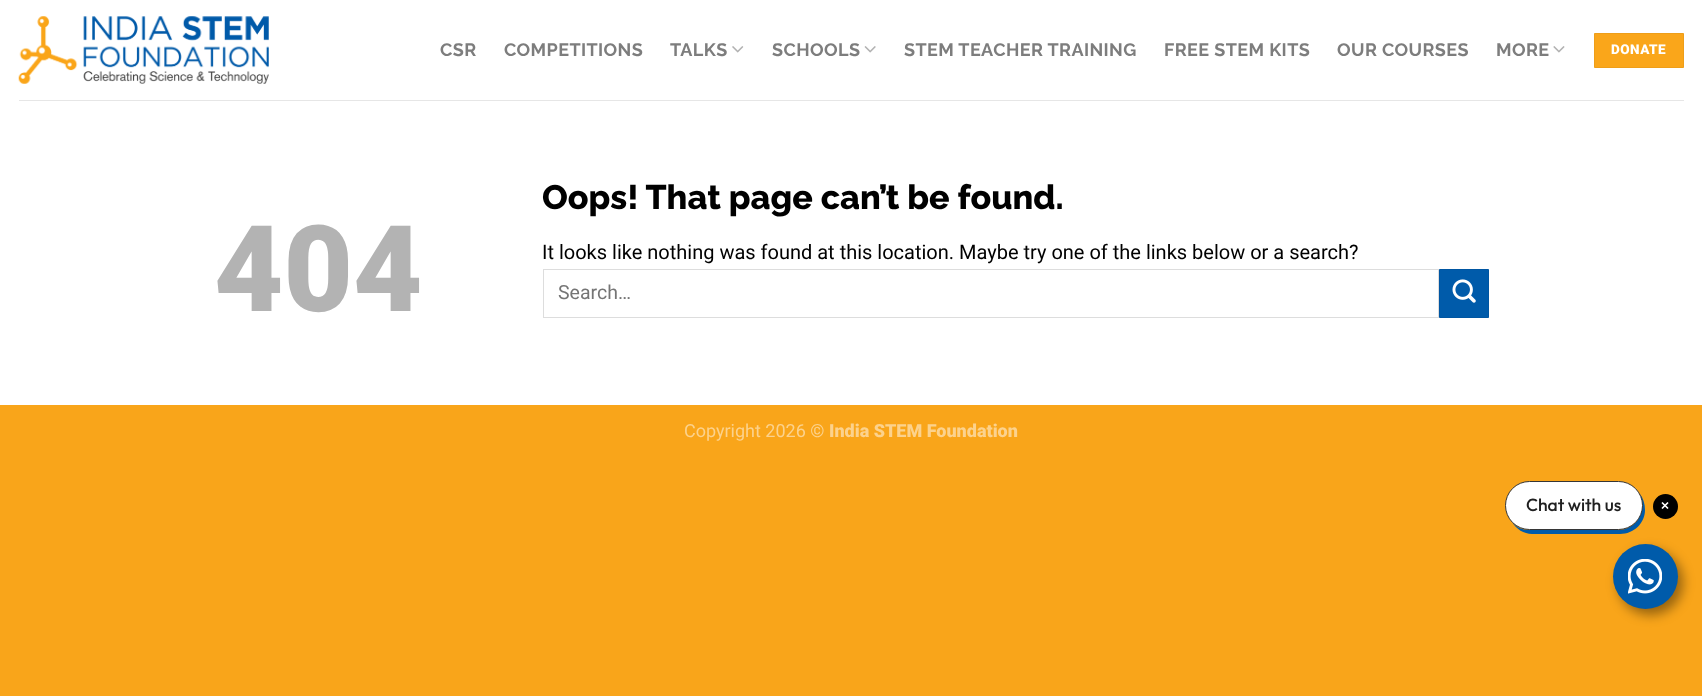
<!DOCTYPE html>
<meta charset="utf-8">
<style>body { margin: 0 } canvas { display: block }</style>
<canvas id="canvas" width="1702" height="696"></canvas>
<script type="module">
  const canvas = document.getElementById("canvas");
  const ctx = canvas.getContext("2d");
  ctx.miterLimit = 4;
  ctx.fontKerning = "normal";
  async function loadImage(src) {
    const img = new Image();
    img.src = src;
    await img.decode();
    return img;
  }

  ctx.fillStyle = "#f9a51a";
  ctx.fillRect(0, 0, 1702, 696);
  ctx.fillStyle = "#ffffff";
  ctx.fillRect(0, 0, 1702, 405);
  ctx.drawImage(await loadImage("img1.png"), 18, 16, 251, 68);
  ctx.letterSpacing = "0.4px";
  ctx.font = "bold 18px Raleway";
  ctx.fillStyle = "#7d7d7d";
  ctx.fillText("CSR", 440, 56);
  ctx.fillText("COMPETITIONS", 504, 56);
  ctx.fillText("TALKS", 670, 56);
  ctx.drawImage(await loadImage("img2.png"), 732, 46, 12, 7);
  ctx.fillText("SCHOOLS", 772, 56);
  ctx.drawImage(await loadImage("img3.png"), 864, 46, 12, 7);
  ctx.fillText("STEM TEACHER TRAINING", 904, 56);
  ctx.fillText("FREE STEM KITS", 1164, 56);
  ctx.fillText("OUR COURSES", 1337, 56);
  ctx.fillText("MORE", 1496, 56);
  ctx.drawImage(await loadImage("img4.png"), 1553, 46, 12, 7);
  ctx.fillStyle = "#faa61a";
  ctx.beginPath();
  ctx.rect(1594.5, 33.5, 89, 34);
  ctx.fill();
  ctx.strokeStyle = "#ee9e19";
  ctx.stroke();
  ctx.letterSpacing = "0.5px";
  ctx.font = "900 13.5px Roboto";
  ctx.fillStyle = "#ffffff";
  ctx.fillText("DONATE", 1611, 54);
  ctx.fillStyle = "#e6e6e6";
  ctx.fillRect(19, 100, 1665, 1);
  ctx.letterSpacing = "0px";
  ctx.font = "900 120px Roboto";
  ctx.fillStyle = "#b3b3b3";
  ctx.fillText("404", 214, 311);
  ctx.font = "800 34px Raleway";
  ctx.fillStyle = "#000000";
  ctx.fillText("Oops! That page can’t be found.", 542, 209);
  ctx.font = "20px Roboto";
  ctx.fillText("It looks like nothing was found at this location. Maybe try one of the links below or a search?", 542, 259);
  ctx.strokeStyle = "#dddddd";
  ctx.strokeRect(543.5, 269.5, 895, 48);
  ctx.font = "19.5px Roboto";
  ctx.fillStyle = "#757575";
  ctx.fillText("Search…", 558, 299);
  ctx.fillStyle = "#005baa";
  ctx.beginPath();
  ctx.rect(1439.5, 269.5, 49, 48);
  ctx.fill();
  ctx.strokeStyle = "#0056a2";
  ctx.stroke();
  ctx.drawImage(await loadImage("img5.png"), 1452, 279, 24, 24);
  ctx.font = "18px Roboto";
  ctx.fillStyle = "#fcd28d";
  ctx.fillText("Copyright 2026 ©", 684, 437);
  ctx.font = "900 18px Roboto";
  ctx.fillText("India STEM Foundation", 829, 437);
  ctx.fillStyle = "rgba(0, 0, 0, 0.4)";
  ctx.filter = "blur(6px)";
  ctx.beginPath();
  ctx.roundRect(1618, 550, 65, 65, 32.5);
  ctx.fill();
  ctx.filter = "none";
  ctx.fillStyle = "#005baa";
  ctx.beginPath();
  ctx.moveTo(1512, 522);
  ctx.bezierCurveTo(1516, 529, 1524, 534, 1532, 534);
  ctx.lineTo(1620, 534);
  ctx.bezierCurveTo(1634, 534, 1645, 523, 1645, 510);
  ctx.bezierCurveTo(1645, 504, 1643, 498, 1640, 494);
  ctx.bezierCurveTo(1641, 498, 1642, 502, 1642, 506);
  ctx.bezierCurveTo(1642, 519, 1632, 530, 1618, 530);
  ctx.lineTo(1529, 530);
  ctx.bezierCurveTo(1522, 530, 1516, 527, 1512, 522);
  ctx.closePath();
  ctx.fill();
  ctx.fillStyle = "#ffffff";
  ctx.beginPath();
  ctx.roundRect(1505.5, 481.5, 137, 48, 24);
  ctx.fill();
  ctx.strokeStyle = "#363636";
  ctx.stroke();
  ctx.font = "500 17.5px Outfit";
  ctx.fillStyle = "#202020";
  ctx.fillText("Chat with us", 1526, 511);
  ctx.fillStyle = "#000000";
  ctx.beginPath();
  ctx.arc(1665.5, 506.5, 12.5, 0, Math.PI * 2);
  ctx.fill();
  ctx.beginPath();
  ctx.moveTo(1662, 502.5);
  ctx.lineTo(1668, 508.5);
  ctx.moveTo(1662, 508.5);
  ctx.lineTo(1668, 502.5);
  ctx.strokeStyle = "#ffffff";
  ctx.lineWidth = 1.7;
  ctx.stroke();
  ctx.fillStyle = "#005baa";
  ctx.beginPath();
  ctx.arc(1645.5, 576.5, 32.5, 0, Math.PI * 2);
  ctx.fill();
  ctx.drawImage(await loadImage("img6.png"), 1628, 559, 34, 35);
</script>
